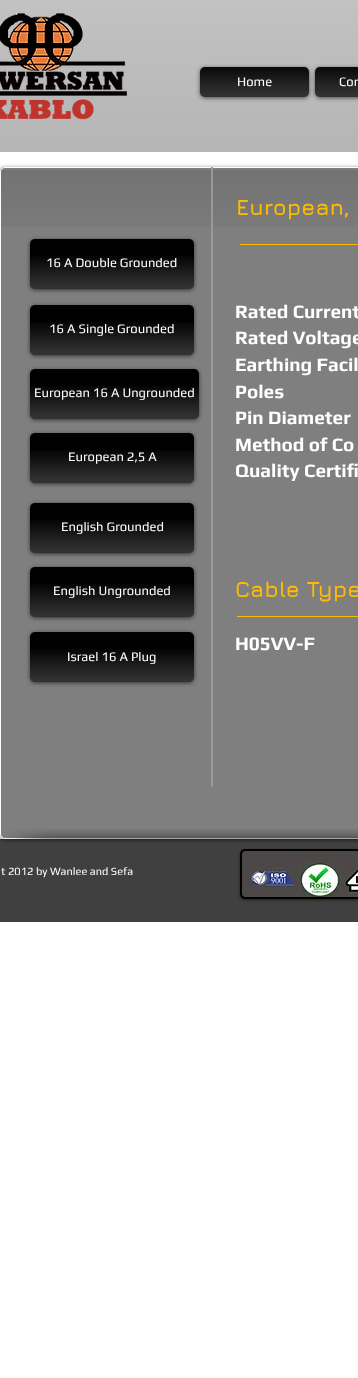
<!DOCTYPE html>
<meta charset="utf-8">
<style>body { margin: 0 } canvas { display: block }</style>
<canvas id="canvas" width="358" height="1378"></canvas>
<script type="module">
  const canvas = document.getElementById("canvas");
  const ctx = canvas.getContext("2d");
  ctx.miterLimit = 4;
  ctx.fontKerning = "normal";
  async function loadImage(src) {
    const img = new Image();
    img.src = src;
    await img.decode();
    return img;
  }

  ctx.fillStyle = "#ffffff";
  ctx.fillRect(0, 0, 358, 1378);
  ctx.fillStyle = "#adadad";
  ctx.fillRect(0, 0, 358, 152);
  ctx.drawImage(await loadImage("img1.png"), 0, 0, 358, 152);
  ctx.drawImage(await loadImage("img2.png"), 0, 13, 127, 107);
  ctx.fillStyle = "rgba(0, 0, 0, 0.6)";
  ctx.filter = "blur(2px)";
  ctx.beginPath();
  ctx.roundRect(200, 68, 109, 30, 5);
  ctx.fill();
  ctx.filter = "none";
  ctx.fillStyle = "#000000";
  ctx.beginPath();
  ctx.roundRect(200, 67, 109, 30, 5);
  ctx.fill();
  ctx.drawImage(await loadImage("img3.png"), 200, 67, 109, 4);
  ctx.drawImage(await loadImage("img4.png"), 200, 67, 109, 30);
  ctx.font = "13px Play";
  ctx.fillStyle = "#ffffff";
  ctx.fillText("Home", 237, 86);
  ctx.fillStyle = "rgba(0, 0, 0, 0.6)";
  ctx.filter = "blur(2px)";
  ctx.beginPath();
  ctx.roundRect(315, 68, 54, 30, 5);
  ctx.fill();
  ctx.filter = "none";
  ctx.fillStyle = "#000000";
  ctx.beginPath();
  ctx.roundRect(315, 67, 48, 30, 5);
  ctx.fill();
  ctx.drawImage(await loadImage("img5.png"), 315, 67, 4, 4);
  ctx.drawImage(await loadImage("img6.png"), 315, 67, 43, 30);
  ctx.fillStyle = "#ffffff";
  ctx.fillText("Cor", 339, 86);
  ctx.save();
  ctx.beginPath();
  ctx.moveTo(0, 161);
  ctx.lineTo(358, 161);
  ctx.lineTo(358, 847);
  ctx.lineTo(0, 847);
  ctx.closePath();
  ctx.moveTo(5, 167);
  ctx.lineTo(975, 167);
  ctx.bezierCurveTo(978, 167, 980, 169, 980, 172);
  ctx.lineTo(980, 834);
  ctx.bezierCurveTo(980, 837, 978, 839, 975, 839);
  ctx.lineTo(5, 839);
  ctx.bezierCurveTo(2, 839, 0, 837, 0, 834);
  ctx.lineTo(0, 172);
  ctx.bezierCurveTo(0, 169, 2, 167, 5, 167);
  ctx.closePath();
  ctx.clip("evenodd");
  ctx.fillStyle = "rgba(0, 0, 0, 0.6)";
  ctx.filter = "blur(2px)";
  ctx.beginPath();
  ctx.roundRect(0, 168, 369, 672, 5);
  ctx.fill();
  ctx.filter = "none";
  ctx.restore();
  ctx.fillStyle = "rgba(0, 0, 0, 0.5)";
  ctx.beginPath();
  ctx.roundRect(0, 167, 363, 672, 5);
  ctx.fill();
  ctx.drawImage(await loadImage("img12.png"), 0, 170, 358, 57);
  ctx.beginPath();
  ctx.roundRect(0.5, 167.5, 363, 671, 4.5);
  ctx.strokeStyle = "#ffffff";
  ctx.stroke();
  ctx.fillStyle = "#999999";
  ctx.fillRect(211, 167, 2, 620);
  ctx.font = "bold 22px Jura";
  ctx.fillStyle = "#ffbb00";
  ctx.fillText("European,", 236, 215);
  ctx.fillRect(240, 244, 118, 1);
  ctx.fillStyle = "rgba(0, 0, 0, 0.6)";
  ctx.filter = "blur(2px)";
  ctx.beginPath();
  ctx.roundRect(30, 240, 164, 50, 5);
  ctx.fill();
  ctx.filter = "none";
  ctx.fillStyle = "#000000";
  ctx.beginPath();
  ctx.roundRect(30, 239, 164, 50, 5);
  ctx.fill();
  ctx.drawImage(await loadImage("img7.png"), 31, 240, 162, 1);
  ctx.drawImage(await loadImage("img8.png"), 30, 256, 164, 33);
  ctx.font = "13px Play";
  ctx.fillStyle = "#ffffff";
  ctx.fillText("16 A Double Grounded", 46, 267);
  ctx.fillStyle = "rgba(0, 0, 0, 0.6)";
  ctx.filter = "blur(2px)";
  ctx.beginPath();
  ctx.roundRect(30, 306, 164, 50, 5);
  ctx.fill();
  ctx.filter = "none";
  ctx.fillStyle = "#000000";
  ctx.beginPath();
  ctx.roundRect(30, 305, 164, 50, 5);
  ctx.fill();
  ctx.drawImage(await loadImage("img7.png"), 31, 306, 162, 1);
  ctx.drawImage(await loadImage("img9.png"), 30, 322, 164, 33);
  ctx.fillStyle = "#ffffff";
  ctx.fillText("16 A Single Grounded", 49, 333);
  ctx.font = "bold 19px Play";
  ctx.fillText("Rated Current", 235, 318);
  ctx.fillText("Rated Voltage", 235, 344);
  ctx.fillText("Earthing Facil", 235, 371);
  ctx.fillText("Poles", 235, 398);
  ctx.fillText("Pin Diameter", 235, 424);
  ctx.fillText("Method of Co", 235, 451);
  ctx.fillText("Quality Certifi", 235, 477);
  ctx.fillStyle = "rgba(0, 0, 0, 0.6)";
  ctx.filter = "blur(2px)";
  ctx.beginPath();
  ctx.roundRect(30, 370, 169, 50, 5);
  ctx.fill();
  ctx.filter = "none";
  ctx.fillStyle = "#000000";
  ctx.beginPath();
  ctx.roundRect(30, 369, 169, 50, 5);
  ctx.fill();
  ctx.drawImage(await loadImage("img10.png"), 31, 370, 167, 1);
  ctx.drawImage(await loadImage("img11.png"), 30, 386, 169, 33);
  ctx.font = "13px Play";
  ctx.fillStyle = "#ffffff";
  ctx.fillText("European 16 A Ungrounded", 34, 397);
  ctx.fillStyle = "rgba(0, 0, 0, 0.6)";
  ctx.filter = "blur(2px)";
  ctx.beginPath();
  ctx.roundRect(30, 434, 164, 50, 5);
  ctx.fill();
  ctx.filter = "none";
  ctx.fillStyle = "#000000";
  ctx.beginPath();
  ctx.roundRect(30, 433, 164, 50, 5);
  ctx.fill();
  ctx.drawImage(await loadImage("img7.png"), 31, 434, 162, 1);
  ctx.drawImage(await loadImage("img9.png"), 30, 450, 164, 33);
  ctx.fillStyle = "#ffffff";
  ctx.fillText("European 2,5 A", 68, 461);
  ctx.fillStyle = "rgba(0, 0, 0, 0.6)";
  ctx.filter = "blur(2px)";
  ctx.beginPath();
  ctx.roundRect(30, 504, 164, 50, 5);
  ctx.fill();
  ctx.filter = "none";
  ctx.fillStyle = "#000000";
  ctx.beginPath();
  ctx.roundRect(30, 503, 164, 50, 5);
  ctx.fill();
  ctx.drawImage(await loadImage("img7.png"), 31, 504, 162, 1);
  ctx.drawImage(await loadImage("img8.png"), 30, 520, 164, 33);
  ctx.fillStyle = "#ffffff";
  ctx.fillText("English Grounded", 61, 531);
  ctx.fillStyle = "rgba(0, 0, 0, 0.6)";
  ctx.filter = "blur(2px)";
  ctx.beginPath();
  ctx.roundRect(30, 568, 164, 50, 5);
  ctx.fill();
  ctx.filter = "none";
  ctx.fillStyle = "#000000";
  ctx.beginPath();
  ctx.roundRect(30, 567, 164, 50, 5);
  ctx.fill();
  ctx.drawImage(await loadImage("img7.png"), 31, 568, 162, 1);
  ctx.drawImage(await loadImage("img9.png"), 30, 584, 164, 33);
  ctx.fillStyle = "#ffffff";
  ctx.fillText("English Ungrounded", 53, 595);
  ctx.font = "bold 22px Jura";
  ctx.fillStyle = "#ffbb00";
  ctx.fillText("Cable Type", 235, 597);
  ctx.font = "bold 19px Play";
  ctx.fillStyle = "#ffffff";
  ctx.fillText("H05VV-F", 235, 650);
  ctx.fillStyle = "#ffbb00";
  ctx.fillRect(237, 616, 121, 1);
  ctx.fillStyle = "rgba(0, 0, 0, 0.6)";
  ctx.filter = "blur(2px)";
  ctx.beginPath();
  ctx.roundRect(30, 633, 164, 50, 5);
  ctx.fill();
  ctx.filter = "none";
  ctx.fillStyle = "#000000";
  ctx.beginPath();
  ctx.roundRect(30, 632, 164, 50, 5);
  ctx.fill();
  ctx.drawImage(await loadImage("img7.png"), 31, 633, 162, 1);
  ctx.drawImage(await loadImage("img9.png"), 30, 649, 164, 33);
  ctx.font = "13px Play";
  ctx.fillStyle = "#ffffff";
  ctx.fillText("Israel 16 A Plug", 67, 661);
  ctx.fillStyle = "rgba(0, 0, 0, 0.75)";
  ctx.fillRect(0, 839, 358, 83);
  ctx.drawImage(await loadImage("img13.png"), 3, 829, 97, 10);
  ctx.drawImage(await loadImage("img14.png"), 100, 829, 258, 10);
  ctx.font = "11px Play";
  ctx.fillStyle = "#ffffff";
  ctx.fillText("t 2012 by Wanlee and Sefa", 1, 875);
  ctx.fillStyle = "rgba(0, 0, 0, 0.5)";
  ctx.filter = "blur(1.5px)";
  ctx.beginPath();
  ctx.roundRect(240, 850, 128, 50, 5);
  ctx.fill();
  ctx.filter = "none";
  ctx.fillStyle = "#000000";
  ctx.beginPath();
  ctx.roundRect(241, 850, 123, 48, 4);
  ctx.fill();
  ctx.strokeStyle = "#000000";
  ctx.lineWidth = 2;
  ctx.stroke();
  ctx.drawImage(await loadImage("img15.png"), 242, 851, 116, 46);
</script>
